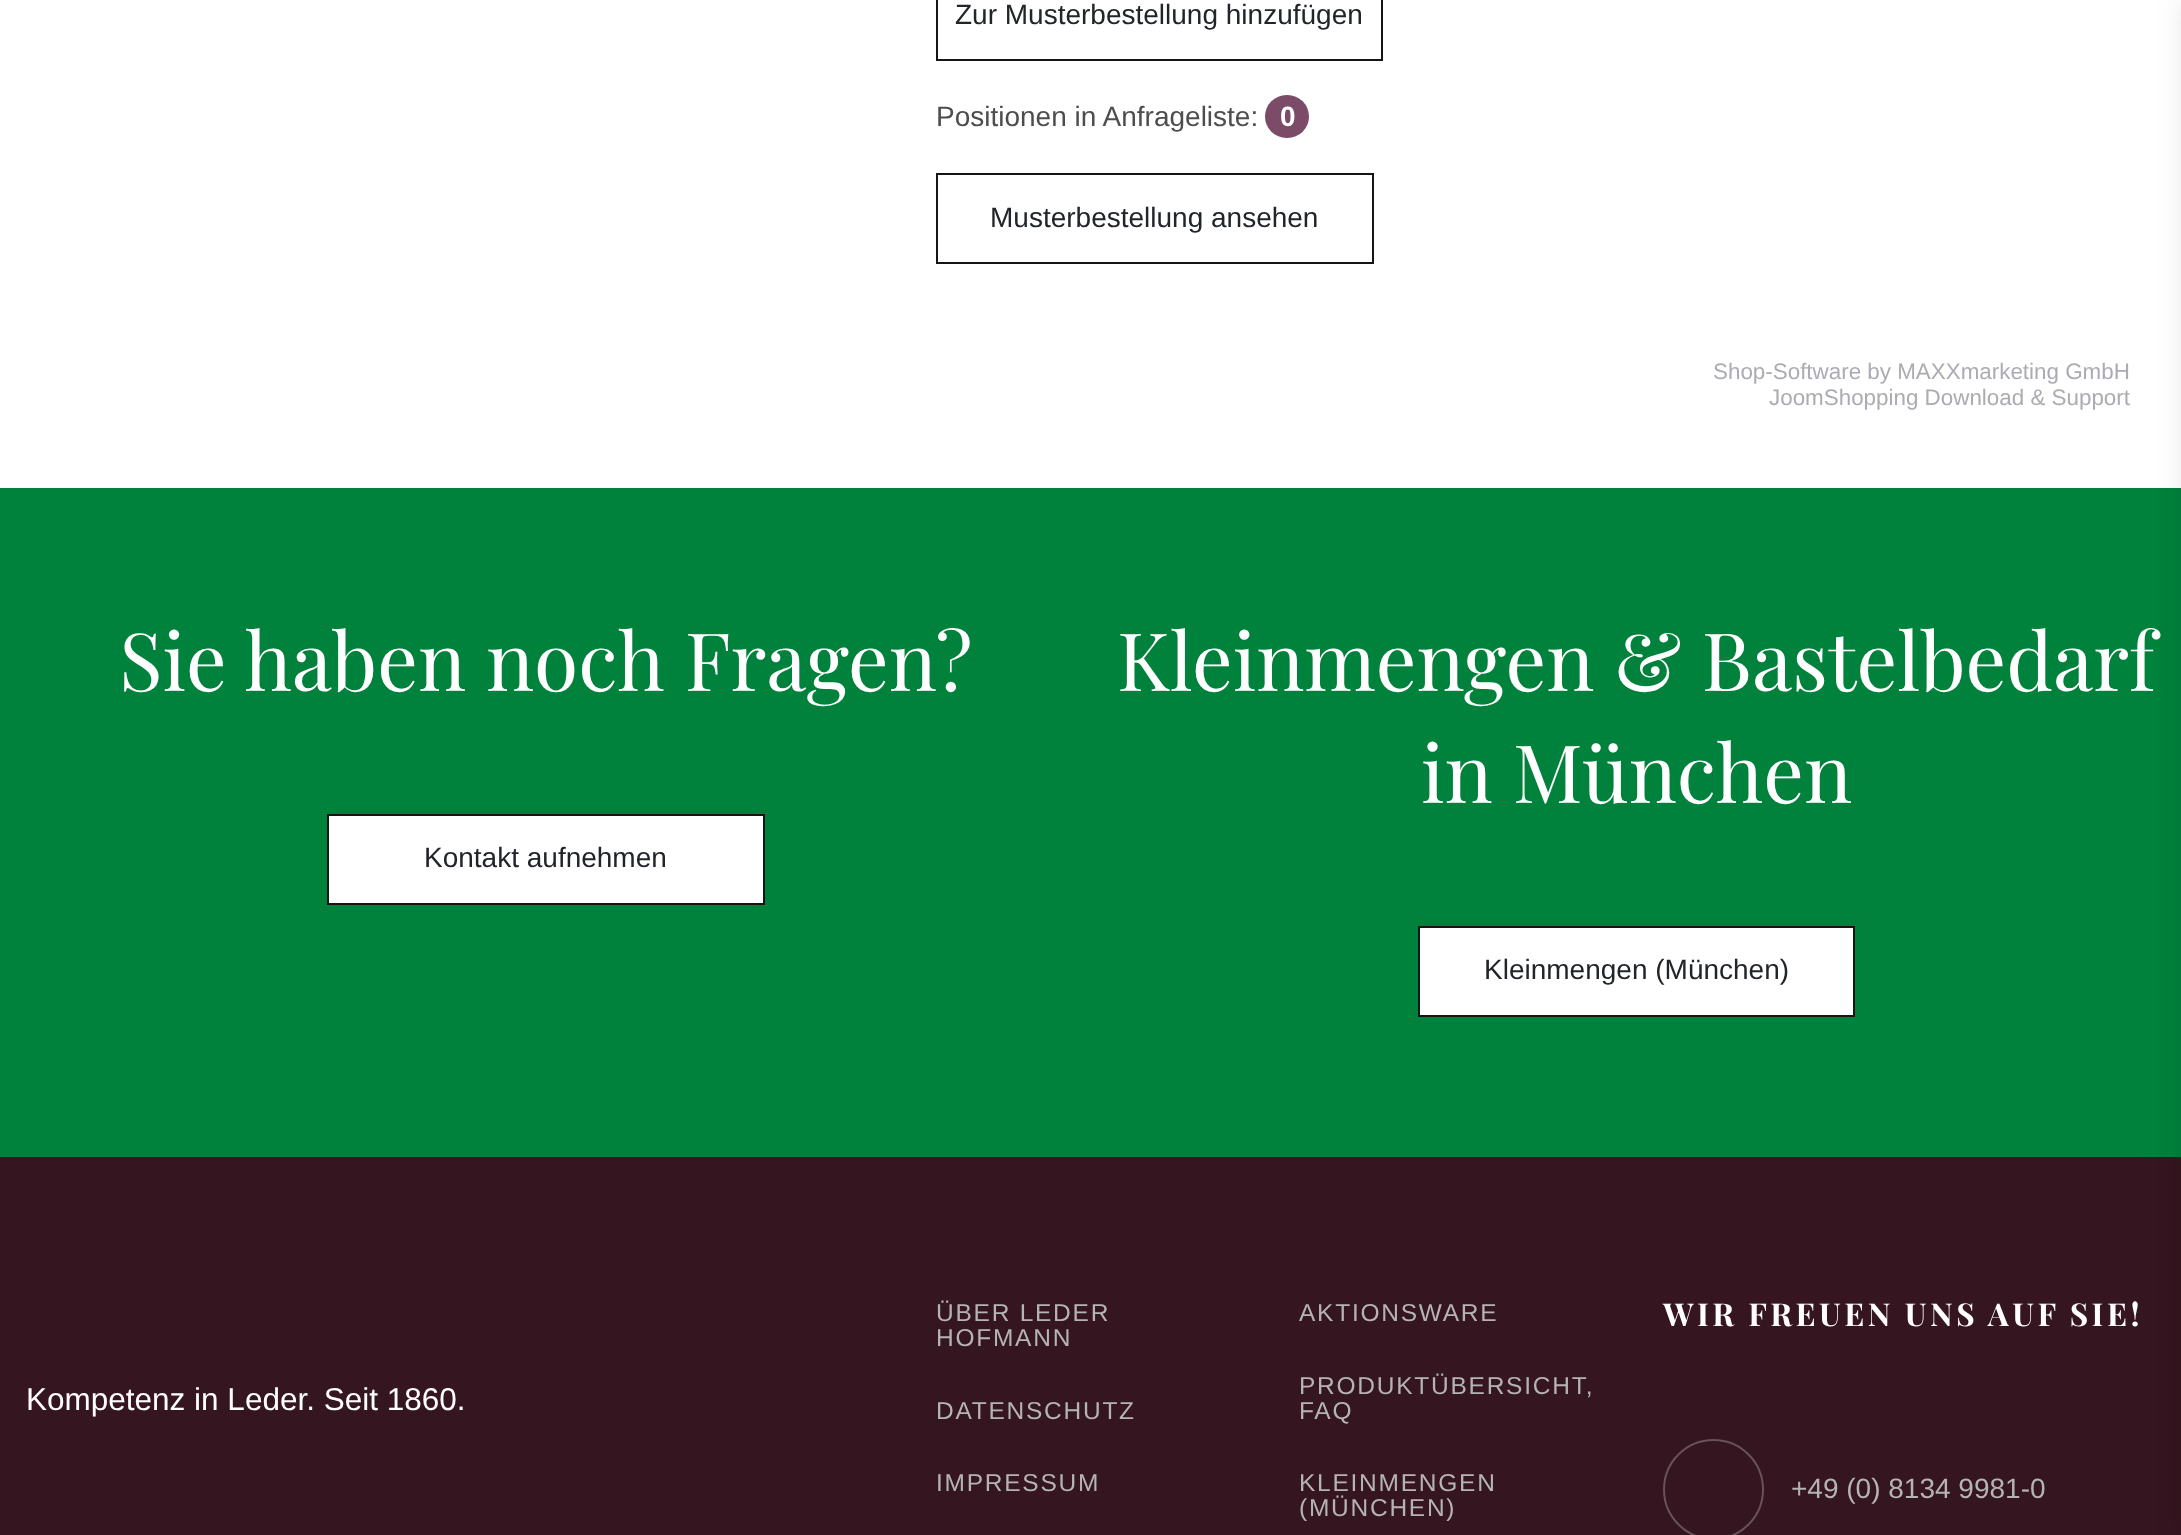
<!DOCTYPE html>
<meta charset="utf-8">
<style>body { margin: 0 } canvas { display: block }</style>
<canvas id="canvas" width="2181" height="1535"></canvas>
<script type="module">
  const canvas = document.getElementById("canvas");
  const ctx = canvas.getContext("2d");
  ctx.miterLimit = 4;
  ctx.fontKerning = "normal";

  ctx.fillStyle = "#ffffff";
  ctx.fillRect(0, 0, 2181, 1535);
  ctx.strokeStyle = "#151517";
  ctx.lineWidth = 2;
  ctx.strokeRect(937, -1, 445, 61);
  ctx.font = "28px Liberation Sans";
  ctx.fillStyle = "#212529";
  ctx.fillText("Zur Musterbestellung hinzufügen", 955, 24);
  ctx.fillStyle = "#4d4d4d";
  ctx.fillText("Positionen in Anfrageliste:", 936, 126);
  ctx.fillStyle = "#7c4b67";
  ctx.beginPath();
  ctx.roundRect(1265, 95, 44, 43, 21.5);
  ctx.fill();
  ctx.font = "bold 28px Liberation Sans";
  ctx.fillStyle = "#ffffff";
  ctx.fillText("0", 1280, 126);
  ctx.strokeRect(937, 174, 436, 89);
  ctx.font = "28px Liberation Sans";
  ctx.fillStyle = "#212529";
  ctx.fillText("Musterbestellung ansehen", 990, 227);
  ctx.font = "22.4px Liberation Sans";
  ctx.fillStyle = "#ababb3";
  ctx.fillText("Shop-Software by MAXXmarketing GmbH", 1713, 379);
  ctx.fillText("JoomShopping Download & Support", 1769, 405);
  ctx.fillStyle = "#00813c";
  ctx.fillRect(0, 488, 2181, 669);
  ctx.font = "80.5px Playfair Display";
  ctx.fillStyle = "#ffffff";
  ctx.fillText("Sie haben noch Fragen?", 119, 691);
  ctx.beginPath();
  ctx.rect(328, 815, 436, 89);
  ctx.fill();
  ctx.stroke();
  ctx.font = "28px Liberation Sans";
  ctx.fillStyle = "#212529";
  ctx.fillText("Kontakt aufnehmen", 424, 867);
  ctx.font = "80.5px Playfair Display";
  ctx.fillStyle = "#ffffff";
  ctx.fillText("Kleinmengen & Bastelbedarf", 1117, 691);
  ctx.fillText("in München", 1421, 803);
  ctx.beginPath();
  ctx.rect(1419, 927, 435, 89);
  ctx.fill();
  ctx.stroke();
  ctx.font = "28px Liberation Sans";
  ctx.fillStyle = "#212529";
  ctx.fillText("Kleinmengen (München)", 1484, 979);
  ctx.fillStyle = "#35151f";
  ctx.fillRect(0, 1157, 2181, 378);
  ctx.font = "31.5px Liberation Sans";
  ctx.fillStyle = "#ffffff";
  ctx.fillText("Kompetenz in Leder. Seit 1860.", 26, 1410);
  ctx.letterSpacing = "1.75px";
  ctx.font = "24.5px Liberation Sans";
  ctx.fillStyle = "#b4b4b4";
  ctx.fillText("ÜBER LEDER", 936, 1321);
  ctx.fillText("HOFMANN", 936, 1346);
  ctx.fillText("DATENSCHUTZ", 936, 1419);
  ctx.fillText("IMPRESSUM", 936, 1491);
  ctx.fillText("AKTIONSWARE", 1299, 1321);
  ctx.fillText("PRODUKTÜBERSICHT,", 1299, 1394);
  ctx.fillText("FAQ", 1299, 1419);
  ctx.fillText("KLEINMENGEN", 1299, 1491);
  ctx.fillText("(MÜNCHEN)", 1299, 1516);
  ctx.letterSpacing = "3.5px";
  ctx.font = "bold 31.5px Playfair Display";
  ctx.fillStyle = "#ffffff";
  ctx.fillText("WIR FREUEN UNS AUF SIE!", 1663, 1326);
  ctx.beginPath();
  ctx.arc(1713.5, 1489.5, 49.5, 0, Math.PI * 2);
  ctx.strokeStyle = "#695259";
  ctx.stroke();
  ctx.letterSpacing = "0px";
  ctx.font = "28px Liberation Sans";
  ctx.fillStyle = "#b4b4b4";
  ctx.fillText("+49 (0) 8134 9981-0", 1791, 1498);
  ctx.fillStyle = "rgba(0, 0, 0, 0.09)";
  ctx.filter = "blur(13px)";
  ctx.beginPath();
  ctx.rect(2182, 0, 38, 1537);
  ctx.fill();
  ctx.filter = "none";
</script>
